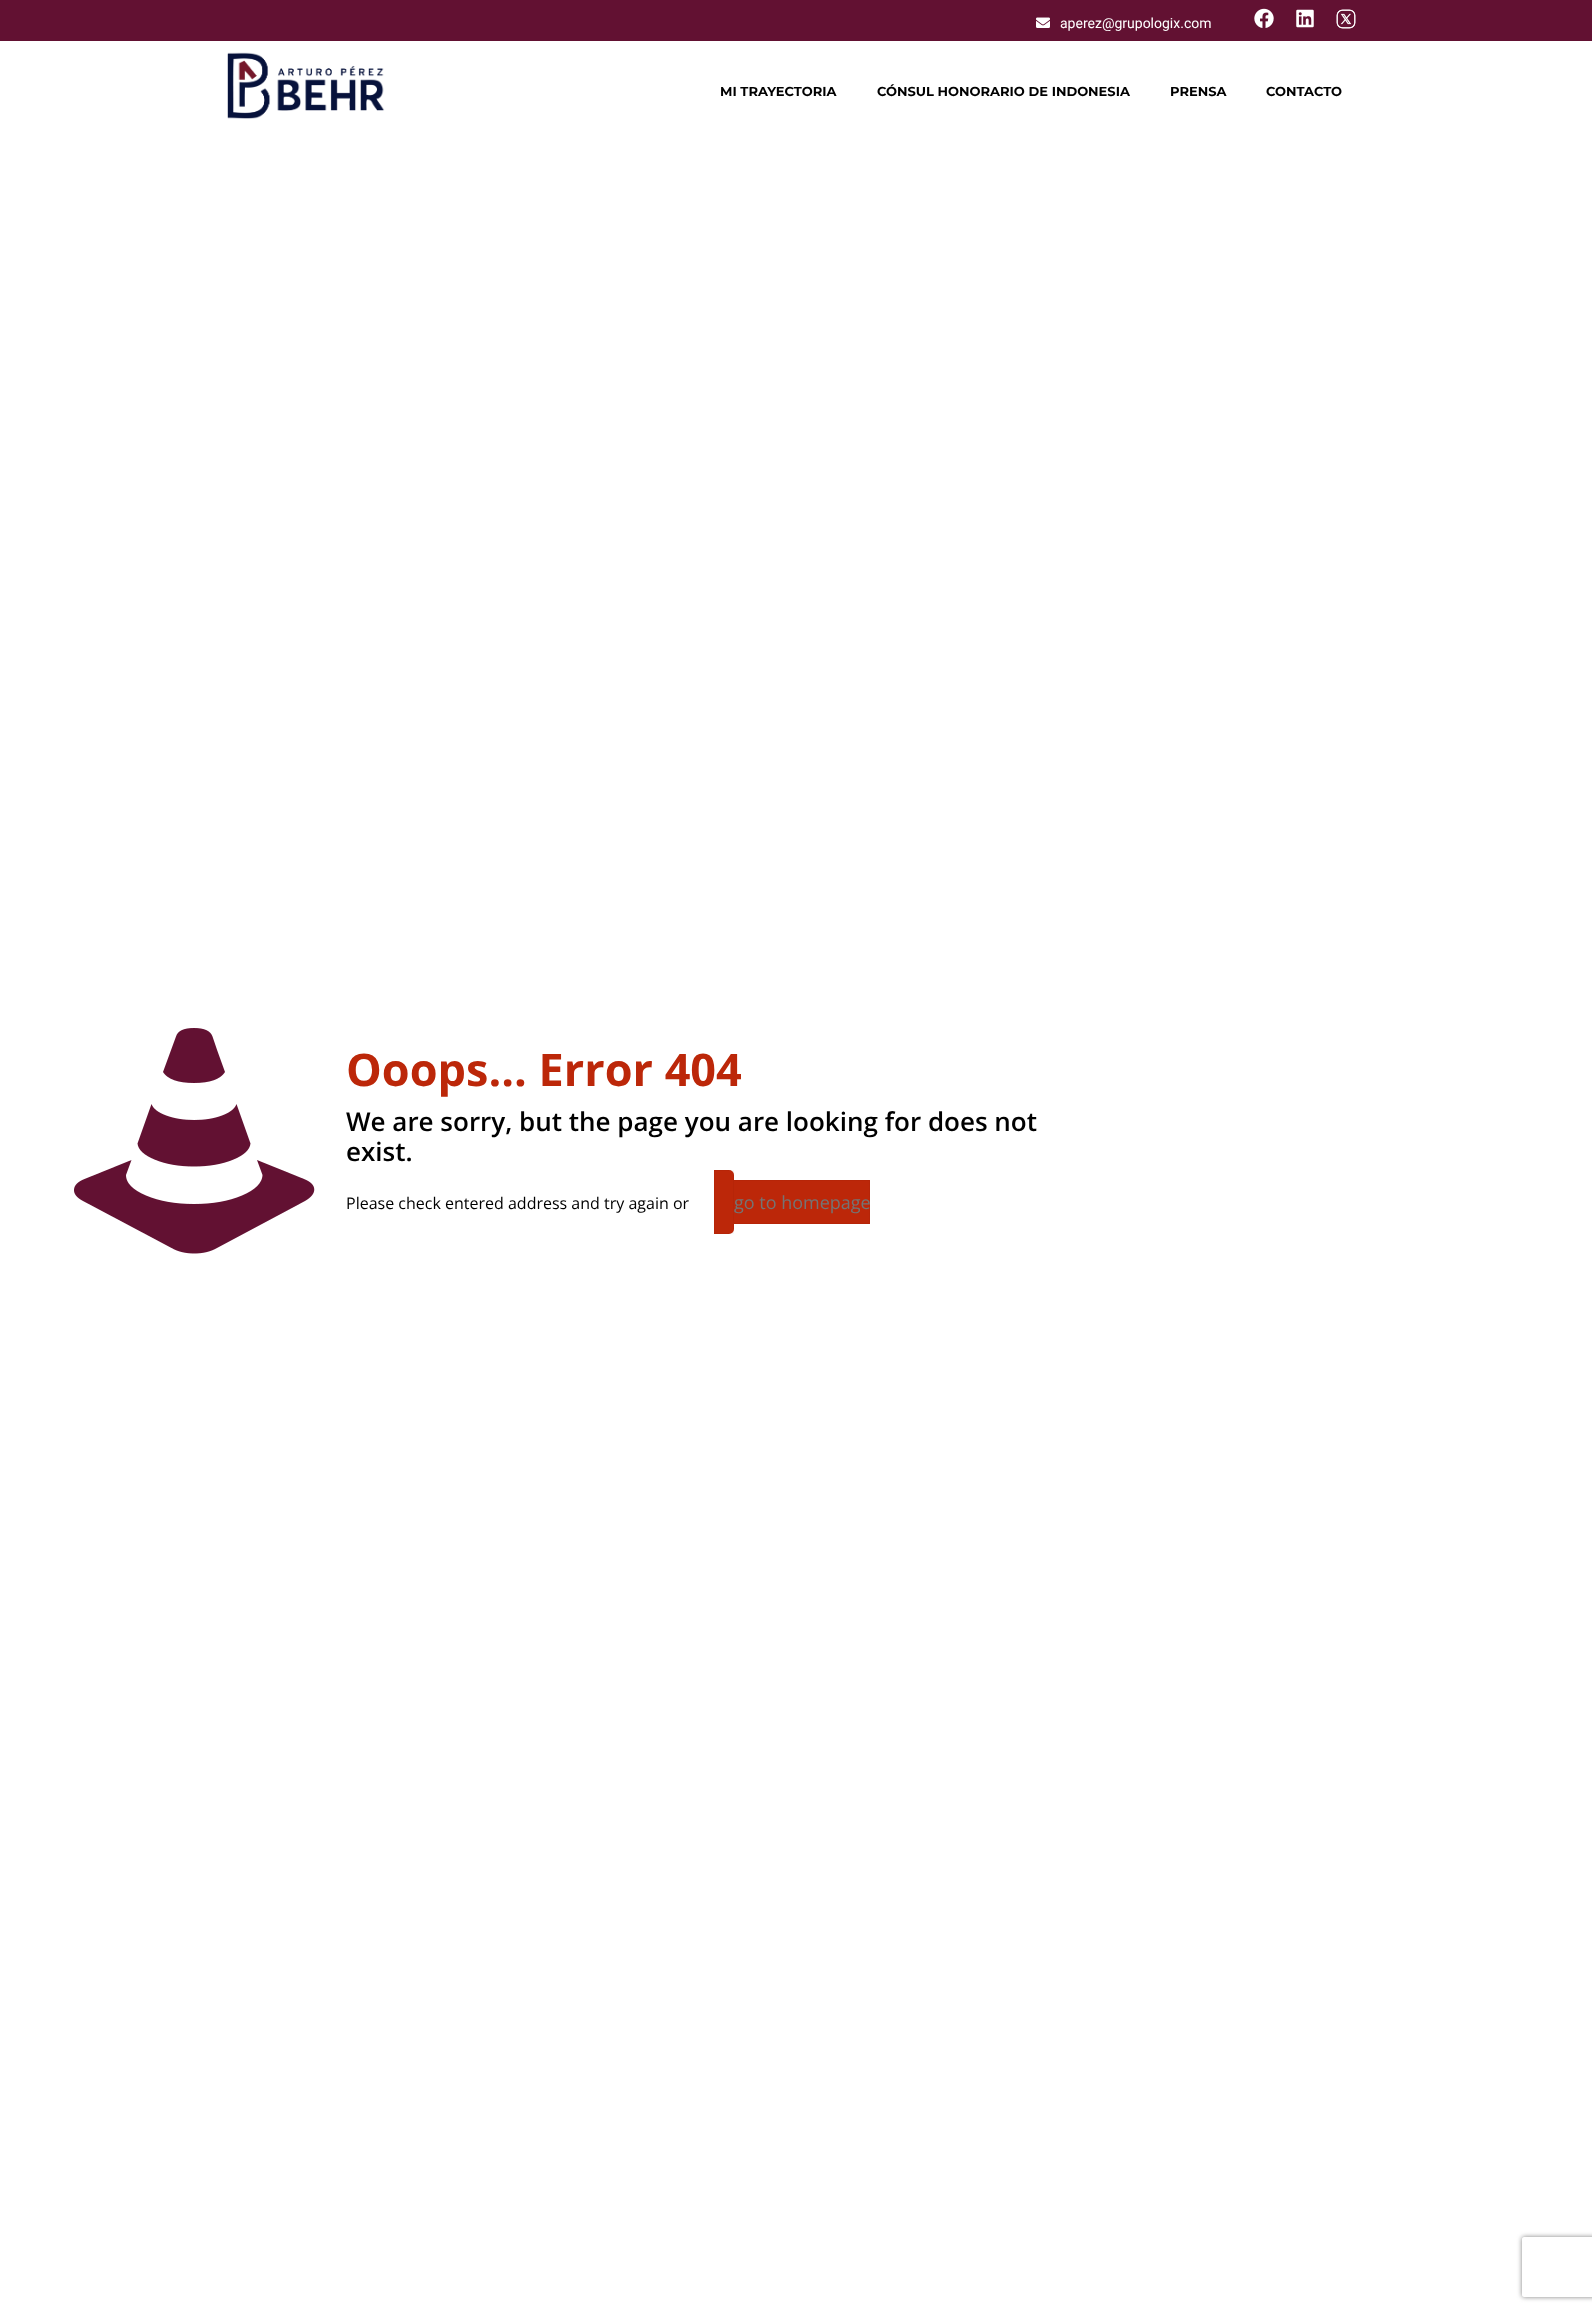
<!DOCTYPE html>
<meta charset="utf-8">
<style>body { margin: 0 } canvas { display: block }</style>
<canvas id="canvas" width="1592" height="2311"></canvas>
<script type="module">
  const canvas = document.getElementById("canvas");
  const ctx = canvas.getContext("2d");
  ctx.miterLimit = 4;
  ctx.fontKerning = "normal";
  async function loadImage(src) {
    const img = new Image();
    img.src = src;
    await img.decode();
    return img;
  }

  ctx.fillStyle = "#ffffff";
  ctx.fillRect(0, 0, 1592, 2311);
  ctx.fillStyle = "#621132";
  ctx.fillRect(0, 0, 1592, 41);
  ctx.drawImage(await loadImage("img1.png"), 1036, 17, 14, 11);
  ctx.font = "14px Roboto";
  ctx.fillStyle = "#ffffff";
  ctx.fillText("aperez@grupologix.com", 1060, 28);
  ctx.drawImage(await loadImage("img2.png"), 1254, 8, 20, 20);
  ctx.drawImage(await loadImage("img3.png"), 1296, 9, 18, 19);
  ctx.drawImage(await loadImage("img4.png"), 1336, 9, 20, 20);
  ctx.drawImage(await loadImage("img5.png"), 227, 52, 158, 67);
  ctx.font = "bold 13px Montserrat";
  ctx.fillStyle = "#000000";
  ctx.fillText("MI TRAYECTORIA", 720, 96);
  ctx.fillText("CÓNSUL HONORARIO DE INDONESIA", 877, 96);
  ctx.fillText("PRENSA", 1170, 96);
  ctx.fillText("CONTACTO", 1266, 96);
  ctx.drawImage(await loadImage("img6.png"), 74, 1028, 241, 226);
  ctx.font = "bold 45px Open Sans";
  ctx.fillStyle = "#bc2709";
  ctx.fillText("Ooops... Error 404", 346, 1086);
  ctx.font = "600 26px Open Sans";
  ctx.fillStyle = "#000000";
  ctx.fillText("We are sorry, but the page you are looking for does not", 346, 1131);
  ctx.fillText("exist.", 346, 1161);
  ctx.font = "16px Open Sans";
  ctx.fillText("Please check entered address and try again or", 346, 1209);
  ctx.fillStyle = "#bc2709";
  ctx.fillRect(734, 1180, 136, 44);
  ctx.strokeStyle = "rgba(0, 0, 0, 0.03)";
  ctx.strokeRect(714.5, 1180.5, 155, 43);
  ctx.beginPath();
  ctx.roundRect(714, 1170, 20, 64, [0, 5, 5, 0]);
  ctx.fill();
  ctx.strokeRect(714.5, 1170.5, 19, 63);
  ctx.font = "18px Open Sans";
  ctx.fillStyle = "#747474";
  ctx.fillText("go to homepage", 734, 1209);
  ctx.save();
  ctx.beginPath();
  ctx.moveTo(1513, 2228);
  ctx.lineTo(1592, 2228);
  ctx.lineTo(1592, 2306);
  ctx.lineTo(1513, 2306);
  ctx.closePath();
  ctx.moveTo(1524, 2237);
  ctx.lineTo(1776, 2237);
  ctx.bezierCurveTo(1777, 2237, 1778, 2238, 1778, 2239);
  ctx.lineTo(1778, 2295);
  ctx.bezierCurveTo(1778, 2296, 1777, 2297, 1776, 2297);
  ctx.lineTo(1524, 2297);
  ctx.bezierCurveTo(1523, 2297, 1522, 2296, 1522, 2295);
  ctx.lineTo(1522, 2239);
  ctx.bezierCurveTo(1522, 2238, 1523, 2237, 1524, 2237);
  ctx.closePath();
  ctx.clip("evenodd");
  ctx.fillStyle = "#808080";
  ctx.filter = "blur(2.5px)";
  ctx.beginPath();
  ctx.roundRect(1522, 2237, 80, 60, 2);
  ctx.fill();
  ctx.filter = "none";
  ctx.restore();
</script>
